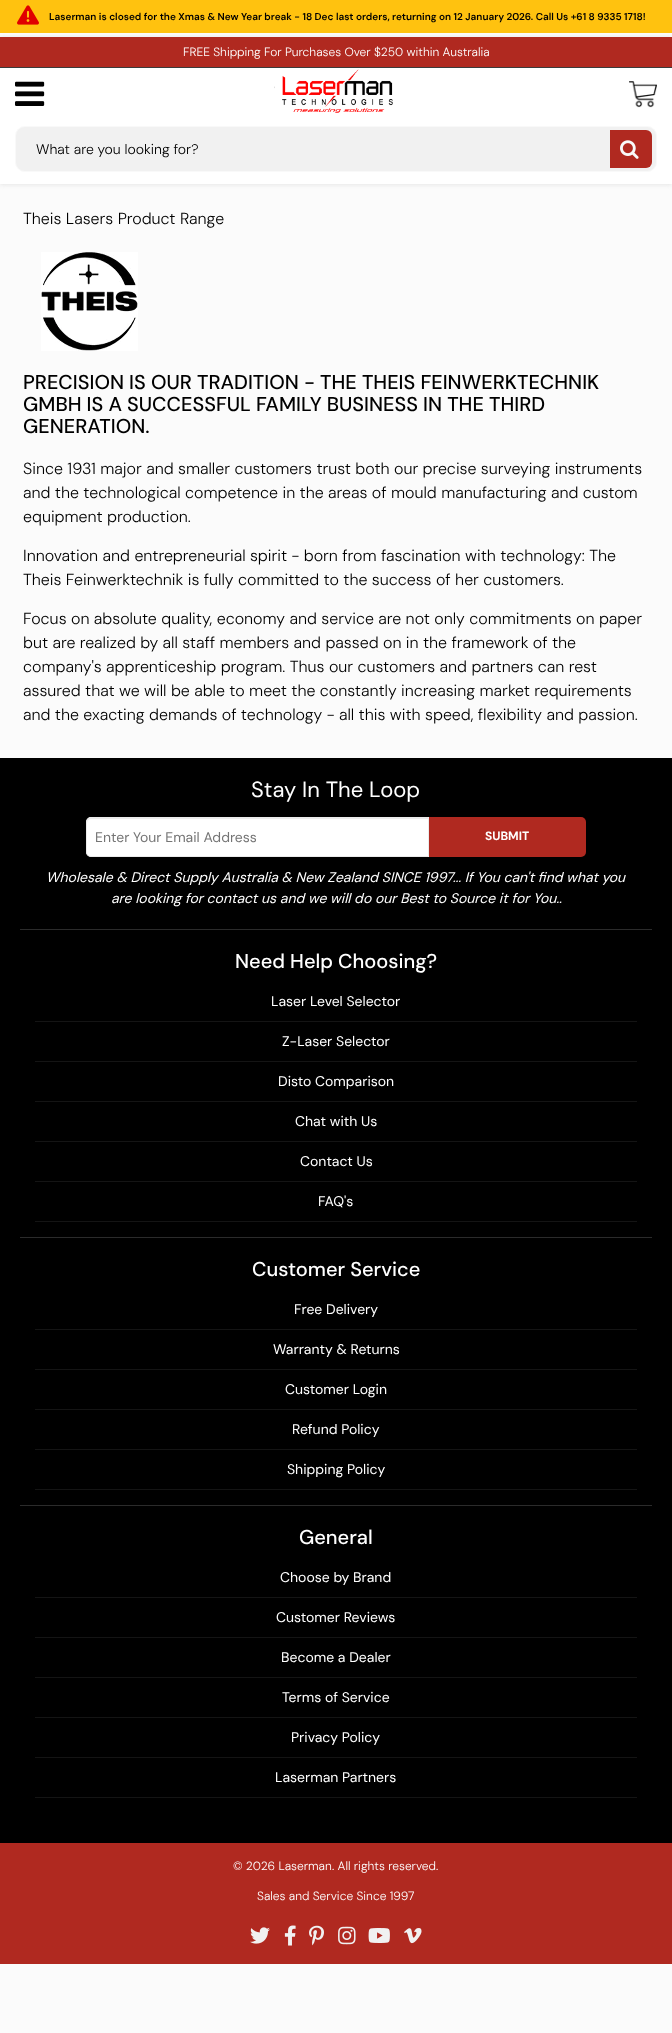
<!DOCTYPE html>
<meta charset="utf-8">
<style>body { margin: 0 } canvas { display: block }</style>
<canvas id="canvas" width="672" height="2033"></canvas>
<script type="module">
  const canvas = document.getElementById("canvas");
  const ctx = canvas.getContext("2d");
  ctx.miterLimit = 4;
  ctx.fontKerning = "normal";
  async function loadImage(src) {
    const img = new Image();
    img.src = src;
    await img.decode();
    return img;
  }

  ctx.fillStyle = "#fbfbfb";
  ctx.fillRect(0, 0, 672, 2033);
  ctx.fillStyle = "#ffc20f";
  ctx.fillRect(0, 0, 672, 33);
  ctx.drawImage(await loadImage("img1.png"), 17, 5, 22, 20);
  ctx.font = "600 10px DM Sans";
  ctx.fillStyle = "#000000";
  ctx.fillText("Laserman is closed for the Xmas & New Year break - 18 Dec last orders, returning on 12 January 2026. Call Us +61 8 9335 1718!", 49, 20);
  ctx.fillStyle = "#dddddd";
  ctx.filter = "blur(2.5px)";
  ctx.beginPath();
  ctx.rect(0, 38, 672, 146);
  ctx.fill();
  ctx.filter = "none";
  ctx.fillStyle = "#ffffff";
  ctx.fillRect(0, 68, 672, 116);
  ctx.fillStyle = "#b02920";
  ctx.fillRect(0, 37, 672, 30);
  ctx.fillStyle = "#3b3b3b";
  ctx.fillRect(0, 67, 672, 1);
  ctx.font = "300 12px DM Sans";
  ctx.fillStyle = "#ffffff";
  ctx.fillText("FREE Shipping For Purchases Over $250 within Australia", 183, 56);
  ctx.drawImage(await loadImage("img2.png"), 15, 81, 30, 25);
  ctx.drawImage(await loadImage("img3.png"), 274, 69, 119, 44);
  ctx.drawImage(await loadImage("img4.png"), 629, 81, 28, 27);
  ctx.fillStyle = "#f1f1f1";
  ctx.beginPath();
  ctx.roundRect(15.5, 126.5, 641, 45, 9.5);
  ctx.fill();
  ctx.strokeStyle = "#f9f9f9";
  ctx.stroke();
  ctx.font = "300 14px DM Sans";
  ctx.fillStyle = "#000000";
  ctx.fillText("What are you looking for?", 36, 154);
  ctx.fillStyle = "#b02920";
  ctx.beginPath();
  ctx.roundRect(610, 130, 42, 38, [0, 6, 6, 0]);
  ctx.fill();
  ctx.drawImage(await loadImage("img5.png"), 620, 140, 19, 19);
  ctx.font = "300 16px DM Sans";
  ctx.fillStyle = "#000000";
  ctx.fillText("Theis Lasers Product Range", 23, 224);
  ctx.drawImage(await loadImage("img6.png"), 41, 252, 97, 99);
  ctx.font = "500 20px DM Sans";
  ctx.fillText("PRECISION IS OUR TRADITION - THE THEIS FEINWERKTECHNIK", 23, 389);
  ctx.fillText("GMBH IS A SUCCESSFUL FAMILY BUSINESS IN THE THIRD", 23, 411);
  ctx.fillText("GENERATION.", 23, 433);
  ctx.font = "300 16px DM Sans";
  ctx.fillText("Since 1931 major and smaller customers trust both our precise surveying instruments", 23, 474);
  ctx.fillText("and the technological competence in the areas of mould manufacturing and custom", 23, 498);
  ctx.fillText("equipment production.", 23, 522);
  ctx.fillText("Innovation and entrepreneurial spirit - born from fascination with technology: The", 23, 561);
  ctx.fillText("Theis Feinwerktechnik is fully committed to the success of her customers.", 23, 585);
  ctx.fillText("Focus on absolute quality, economy and service are not only commitments on paper", 23, 624);
  ctx.fillText("but are realized by all staff members and passed on in the framework of the", 23, 648);
  ctx.fillText("company's apprenticeship program. Thus our customers and partners can rest", 23, 672);
  ctx.fillText("assured that we will be able to meet the constantly increasing market requirements", 23, 696);
  ctx.fillText("and the exacting demands of technology - all this with speed, flexibility and passion.", 23, 720);
  ctx.fillRect(0, 758, 672, 1085);
  ctx.fillStyle = "#2b2b2b";
  ctx.fillRect(20, 929, 632, 1);
  ctx.font = "22px DM Sans";
  ctx.fillStyle = "#ffffff";
  ctx.fillText("Stay In The Loop", 251, 797);
  ctx.beginPath();
  ctx.roundRect(86, 817, 343, 40, [5, 0, 0, 5]);
  ctx.fill();
  ctx.fillStyle = "#ececec";
  ctx.beginPath();
  ctx.moveTo(91, 819);
  ctx.lineTo(428, 819);
  ctx.lineTo(428, 818);
  ctx.lineTo(91, 818);
  ctx.bezierCurveTo(88, 818, 87, 820, 87, 823);
  ctx.bezierCurveTo(87, 821, 89, 819, 91, 819);
  ctx.closePath();
  ctx.fill();
  ctx.beginPath();
  ctx.roundRect(86.5, 817.5, 342, 39, [4.5, 0, 0, 4.5]);
  ctx.strokeStyle = "#ebebeb";
  ctx.stroke();
  ctx.font = "14px DM Sans";
  ctx.fillStyle = "#757575";
  ctx.fillText("Enter Your Email Address", 95, 842);
  ctx.fillStyle = "#b02920";
  ctx.beginPath();
  ctx.roundRect(429, 817, 157, 40, [0, 5, 5, 0]);
  ctx.fill();
  ctx.font = "bold 12px DM Sans";
  ctx.fillStyle = "#ffffff";
  ctx.fillText("SUBMIT", 485, 840);
  ctx.font = "italic 14px DM Sans";
  ctx.fillText("Wholesale & Direct Supply Australia & New Zealand SINCE 1997... If You can't find what you", 46, 882);
  ctx.fillText("are looking for contact us and we will do our Best to Source it for You..", 111, 903);
  ctx.fillStyle = "#2b2b2b";
  ctx.fillRect(20, 1237, 632, 1);
  ctx.font = "500 20px DM Sans";
  ctx.fillStyle = "#ffffff";
  ctx.fillText("Need Help Choosing?", 235, 968);
  ctx.fillStyle = "#141414";
  ctx.fillRect(35, 1021, 602, 1);
  ctx.font = "14px DM Sans";
  ctx.fillStyle = "#ffffff";
  ctx.fillText("Laser Level Selector", 271, 1006);
  ctx.fillStyle = "#141414";
  ctx.fillRect(35, 1061, 602, 1);
  ctx.fillStyle = "#ffffff";
  ctx.fillText("Z-Laser Selector", 282, 1046);
  ctx.fillStyle = "#141414";
  ctx.fillRect(35, 1101, 602, 1);
  ctx.fillStyle = "#ffffff";
  ctx.fillText("Disto Comparison", 278, 1086);
  ctx.fillStyle = "#141414";
  ctx.fillRect(35, 1141, 602, 1);
  ctx.fillStyle = "#ffffff";
  ctx.fillText("Chat with Us", 295, 1126);
  ctx.fillStyle = "#141414";
  ctx.fillRect(35, 1181, 602, 1);
  ctx.fillStyle = "#ffffff";
  ctx.fillText("Contact Us", 300, 1166);
  ctx.fillStyle = "#141414";
  ctx.fillRect(35, 1221, 602, 1);
  ctx.fillStyle = "#ffffff";
  ctx.fillText("FAQ's", 318, 1206);
  ctx.fillStyle = "#2b2b2b";
  ctx.fillRect(20, 1505, 632, 1);
  ctx.font = "500 20px DM Sans";
  ctx.fillStyle = "#ffffff";
  ctx.fillText("Customer Service", 252, 1276);
  ctx.fillStyle = "#141414";
  ctx.fillRect(35, 1329, 602, 1);
  ctx.font = "14px DM Sans";
  ctx.fillStyle = "#ffffff";
  ctx.fillText("Free Delivery", 294, 1314);
  ctx.fillStyle = "#141414";
  ctx.fillRect(35, 1369, 602, 1);
  ctx.fillStyle = "#ffffff";
  ctx.fillText("Warranty & Returns", 273, 1354);
  ctx.fillStyle = "#141414";
  ctx.fillRect(35, 1409, 602, 1);
  ctx.fillStyle = "#ffffff";
  ctx.fillText("Customer Login", 285, 1394);
  ctx.fillStyle = "#141414";
  ctx.fillRect(35, 1449, 602, 1);
  ctx.fillStyle = "#ffffff";
  ctx.fillText("Refund Policy", 292, 1434);
  ctx.fillStyle = "#141414";
  ctx.fillRect(35, 1489, 602, 1);
  ctx.fillStyle = "#ffffff";
  ctx.fillText("Shipping Policy", 287, 1474);
  ctx.font = "500 20px DM Sans";
  ctx.fillText("General", 299, 1544);
  ctx.fillStyle = "#141414";
  ctx.fillRect(35, 1597, 602, 1);
  ctx.font = "14px DM Sans";
  ctx.fillStyle = "#ffffff";
  ctx.fillText("Choose by Brand", 280, 1582);
  ctx.fillStyle = "#141414";
  ctx.fillRect(35, 1637, 602, 1);
  ctx.fillStyle = "#ffffff";
  ctx.fillText("Customer Reviews", 276, 1622);
  ctx.fillStyle = "#141414";
  ctx.fillRect(35, 1677, 602, 1);
  ctx.fillStyle = "#ffffff";
  ctx.fillText("Become a Dealer", 281, 1662);
  ctx.fillStyle = "#141414";
  ctx.fillRect(35, 1717, 602, 1);
  ctx.fillStyle = "#ffffff";
  ctx.fillText("Terms of Service", 282, 1702);
  ctx.fillStyle = "#141414";
  ctx.fillRect(35, 1757, 602, 1);
  ctx.fillStyle = "#ffffff";
  ctx.fillText("Privacy Policy", 291, 1742);
  ctx.fillStyle = "#141414";
  ctx.fillRect(35, 1797, 602, 1);
  ctx.fillStyle = "#ffffff";
  ctx.fillText("Laserman Partners", 275, 1782);
  ctx.fillStyle = "#b02920";
  ctx.fillRect(0, 1843, 672, 121);
  ctx.font = "300 12px DM Sans";
  ctx.fillStyle = "#ffffff";
  ctx.fillText("© 2026 Laserman", 233, 1870);
  ctx.fillText(". All rights reserved.", 332, 1870);
  ctx.fillText("Sales and Service Since 1997", 257, 1900);
  ctx.drawImage(await loadImage("img7.png"), 250, 1927, 20, 17);
  ctx.drawImage(await loadImage("img8.png"), 284, 1925, 12, 21);
  ctx.drawImage(await loadImage("img9.png"), 309, 1925, 15, 21);
  ctx.drawImage(await loadImage("img10.png"), 338, 1926, 18, 19);
  ctx.drawImage(await loadImage("img11.png"), 368, 1928, 22, 15);
  ctx.drawImage(await loadImage("img12.png"), 404, 1928, 18, 16);
</script>
